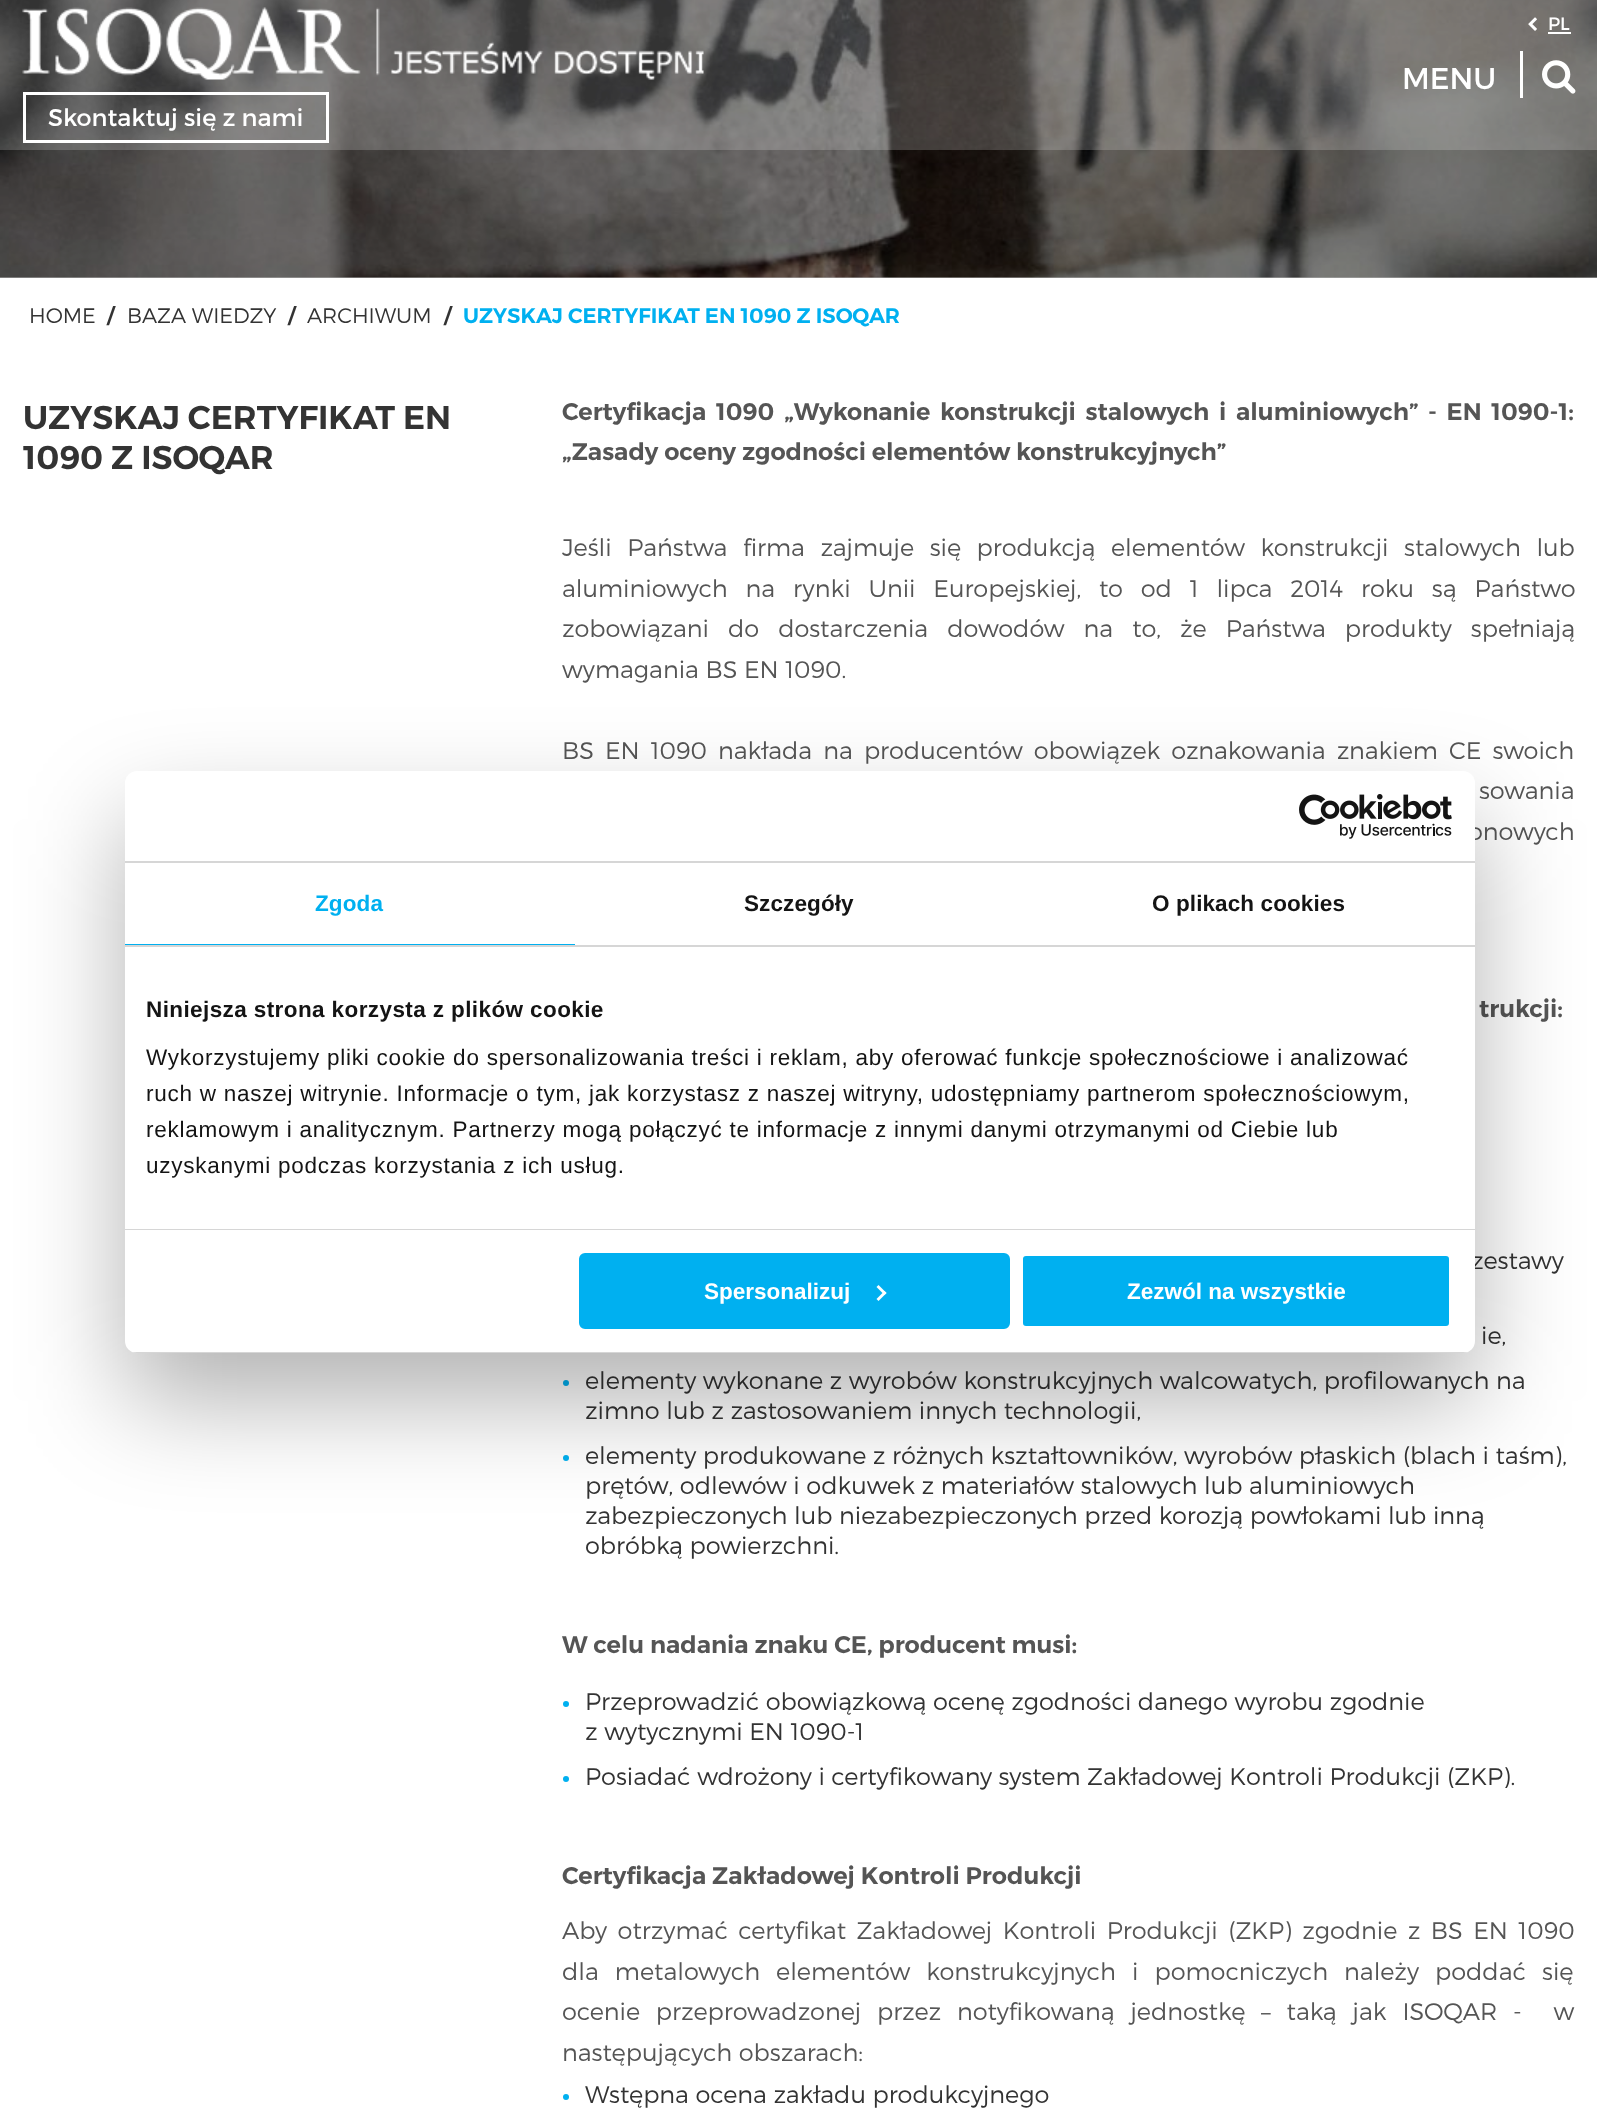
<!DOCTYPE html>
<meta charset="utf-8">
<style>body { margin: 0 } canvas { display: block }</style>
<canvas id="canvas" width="1597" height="2124"></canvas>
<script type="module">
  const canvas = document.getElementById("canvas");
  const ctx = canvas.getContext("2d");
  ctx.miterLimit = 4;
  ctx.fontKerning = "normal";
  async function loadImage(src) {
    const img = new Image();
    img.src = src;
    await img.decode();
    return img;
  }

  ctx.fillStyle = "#ffffff";
  ctx.fillRect(0, 0, 1597, 2124);
  ctx.fillStyle = "#b3b3b3";
  ctx.fillRect(0, 277, 1597, 1);
  ctx.drawImage(await loadImage("img4.png"), 0, 0, 1597, 278);
  ctx.fillStyle = "rgba(255, 255, 255, 0.2)";
  ctx.fillRect(0, 0, 1597, 150);
  ctx.drawImage(await loadImage("img1.png"), 22, 7, 682, 73);
  ctx.drawImage(await loadImage("img2.png"), 1528, 17, 9, 14);
  ctx.font = "18px Montserrat";
  ctx.fillStyle = "#ffffff";
  ctx.fillText("PL", 1548, 30);
  ctx.fillRect(1548, 32, 23, 2);
  ctx.font = "30px Montserrat";
  ctx.fillText("MENU", 1402, 89);
  ctx.fillRect(1520, 51, 3, 47);
  ctx.drawImage(await loadImage("img3.png"), 1542, 60, 34, 34);
  ctx.strokeStyle = "#ffffff";
  ctx.lineWidth = 3;
  ctx.strokeRect(24.5, 93.5, 303, 48);
  ctx.font = "24px Montserrat";
  ctx.fillText("Skontaktuj się z nami", 48, 126);
  ctx.font = "300 21px Montserrat";
  ctx.fillStyle = "#333333";
  ctx.fillText("HOME", 29, 323);
  ctx.font = "600 21px Montserrat";
  ctx.fillText("/", 107, 323);
  ctx.font = "300 21px Montserrat";
  ctx.fillText("BAZA WIEDZY", 127, 323);
  ctx.font = "600 21px Montserrat";
  ctx.fillText("/", 288, 323);
  ctx.font = "300 21px Montserrat";
  ctx.fillText("ARCHIWUM", 307, 323);
  ctx.font = "600 21px Montserrat";
  ctx.fillText("/", 444, 323);
  ctx.fillStyle = "#00b0f0";
  ctx.fillText("UZYSKAJ CERTYFIKAT EN 1090 Z ISOQAR", 463, 323);
  ctx.font = "600 33px Montserrat";
  ctx.fillStyle = "#333333";
  ctx.fillText("UZYSKAJ CERTYFIKAT EN", 23, 429);
  ctx.fillText("1090 Z ISOQAR", 23, 469);
  ctx.wordSpacing = "4px";
  ctx.font = "600 24px Montserrat";
  ctx.fillStyle = "#555555";
  ctx.fillText("Certyfikacja 1090 „Wykonanie konstrukcji stalowych i aluminiowych” - EN 1090-1:", 562, 420);
  ctx.wordSpacing = "0px";
  ctx.fillText("„Zasady oceny zgodności elementów konstrukcyjnych”", 562, 460);
  ctx.wordSpacing = "9px";
  ctx.font = "300 24px Montserrat";
  ctx.fillText("Jeśli Państwa firma zajmuje się produkcją elementów konstrukcji stalowych lub", 562, 556);
  ctx.wordSpacing = "11.25px";
  ctx.fillText("aluminiowych na rynki Unii Europejskiej, to od 1 lipca 2014 roku są Państwo", 562, 597);
  ctx.wordSpacing = "12.5px";
  ctx.fillText("zobowiązani do dostarczenia dowodów na to, że Państwa produkty spełniają", 562, 637);
  ctx.wordSpacing = "0px";
  ctx.fillText("wymagania BS EN 1090.", 562, 678);
  ctx.wordSpacing = "4.5px";
  ctx.fillText("BS EN 1090 nakłada na producentów obowiązek oznakowania znakiem CE swoich", 562, 759);
  ctx.wordSpacing = "32px";
  ctx.fillText("sowania", 1479, 799);
  ctx.wordSpacing = "12px";
  ctx.fillText("onowych", 1468, 840);
  ctx.wordSpacing = "0px";
  ctx.font = "600 24px Montserrat";
  ctx.fillText("trukcji:", 1479, 1017);
  ctx.font = "300 24px Montserrat";
  ctx.fillStyle = "#333333";
  ctx.fillText("zestawy", 1471, 1269);
  ctx.fillText("ie,", 1481, 1344);
  ctx.fillStyle = "#00b0f0";
  ctx.beginPath();
  ctx.arc(566, 1383, 3, 0, Math.PI * 2);
  ctx.fill();
  ctx.fillStyle = "#333333";
  ctx.fillText("elementy wykonane z wyrobów konstrukcyjnych walcowatych, profilowanych na", 585, 1389);
  ctx.fillText("zimno lub z zastosowaniem innych technologii,", 585, 1419);
  ctx.fillStyle = "#00b0f0";
  ctx.beginPath();
  ctx.arc(566, 1458, 3, 0, Math.PI * 2);
  ctx.fill();
  ctx.fillStyle = "#333333";
  ctx.fillText("elementy produkowane z różnych kształtowników, wyrobów płaskich (blach i taśm),", 585, 1464);
  ctx.fillText("prętów, odlewów i odkuwek z materiałów stalowych lub aluminiowych", 585, 1494);
  ctx.fillText("zabezpieczonych lub niezabezpieczonych przed korozją powłokami lub inną", 585, 1524);
  ctx.fillText("obróbką powierzchni.", 585, 1554);
  ctx.font = "600 24px Montserrat";
  ctx.fillStyle = "#555555";
  ctx.fillText("W celu nadania znaku CE, producent musi:", 562, 1653);
  ctx.fillStyle = "#00b0f0";
  ctx.beginPath();
  ctx.arc(566, 1704, 3, 0, Math.PI * 2);
  ctx.fill();
  ctx.font = "300 24px Montserrat";
  ctx.fillStyle = "#333333";
  ctx.fillText("Przeprowadzić obowiązkową ocenę zgodności danego wyrobu zgodnie", 585, 1710);
  ctx.fillText("z wytycznymi EN 1090-1", 585, 1740);
  ctx.fillStyle = "#00b0f0";
  ctx.beginPath();
  ctx.arc(566, 1779, 3, 0, Math.PI * 2);
  ctx.fill();
  ctx.fillStyle = "#333333";
  ctx.fillText("Posiadać wdrożony i certyfikowany system Zakładowej Kontroli Produkcji (ZKP).", 585, 1785);
  ctx.font = "600 24px Montserrat";
  ctx.fillStyle = "#555555";
  ctx.fillText("Certyfikacja Zakładowej Kontroli Produkcji", 562, 1884);
  ctx.wordSpacing = "3.9px";
  ctx.font = "300 24px Montserrat";
  ctx.fillText("Aby otrzymać certyfikat Zakładowej Kontroli Produkcji (ZKP) zgodnie z BS EN 1090", 562, 1939);
  ctx.wordSpacing = "9.5px";
  ctx.fillText("dla metalowych elementów konstrukcyjnych i pomocniczych należy poddać się", 562, 1980);
  ctx.wordSpacing = "9.25px";
  ctx.fillText("ocenie przeprowadzonej przez notyfikowaną jednostkę – taką jak ISOQAR -  w", 562, 2020);
  ctx.wordSpacing = "0px";
  ctx.fillText("następujących obszarach:", 562, 2061);
  ctx.fillStyle = "#00b0f0";
  ctx.beginPath();
  ctx.arc(566, 2097, 3, 0, Math.PI * 2);
  ctx.fill();
  ctx.fillStyle = "#333333";
  ctx.fillText("Wstępna ocena zakładu produkcyjnego", 585, 2103);
  ctx.fillStyle = "rgba(0, 0, 0, 0.3)";
  ctx.filter = "blur(51px)";
  ctx.beginPath();
  ctx.roundRect(125, 819, 1350, 582, 12);
  ctx.fill();
  ctx.filter = "none";
  ctx.fillStyle = "#ffffff";
  ctx.beginPath();
  ctx.roundRect(125, 771, 1350, 582, 12);
  ctx.fill();
  ctx.fillStyle = "#d6d6d6";
  ctx.fillRect(125, 861, 1350, 2);
  ctx.drawImage(await loadImage("img5.png"), 1299, 794, 153, 45);
  ctx.fillRect(125, 945, 1350, 2);
  ctx.fillStyle = "#00b0f0";
  ctx.fillRect(125, 944, 450, 1);
  ctx.letterSpacing = "0.1px";
  ctx.font = "bold 22.5px Liberation Sans";
  ctx.fillText("Zgoda", 315, 911);
  ctx.fillStyle = "#141414";
  ctx.fillText("Szczegóły", 744, 911);
  ctx.fillText("O plikach cookies", 1152, 911);
  ctx.fillStyle = "#d6d6d6";
  ctx.fillRect(125, 1229, 1350, 1);
  ctx.letterSpacing = "0.4px";
  ctx.fillStyle = "#141414";
  ctx.fillText("Niniejsza strona korzysta z plików cookie", 146, 1017);
  ctx.letterSpacing = "0.75px";
  ctx.font = "22.5px Liberation Sans";
  ctx.fillText("Wykorzystujemy pliki cookie do spersonalizowania treści i reklam, aby oferować funkcje społecznościowe i analizować", 146, 1065);
  ctx.fillText("ruch w naszej witrynie. Informacje o tym, jak korzystasz z naszej witryny, udostępniamy partnerom społecznościowym,", 146, 1101);
  ctx.fillText("reklamowym i analitycznym. Partnerzy mogą połączyć te informacje z innymi danymi otrzymanymi od Ciebie lub", 146, 1137);
  ctx.fillText("uzyskanymi podczas korzystania z ich usług.", 146, 1173);
  ctx.save();
  ctx.beginPath();
  ctx.roundRect(125, 771, 1350, 582, 12);
  ctx.clip();
  ctx.fillStyle = "#d6d6d6";
  ctx.fillRect(125, 1352, 1350, 1);
  ctx.restore();
  ctx.fillStyle = "#00b0f0";
  ctx.beginPath();
  ctx.roundRect(580.5, 1254.5, 428, 73, 4.5);
  ctx.fill();
  ctx.strokeStyle = "#00b0f0";
  ctx.stroke();
  ctx.letterSpacing = "0px";
  ctx.font = "bold 22.5px Liberation Sans";
  ctx.fillStyle = "#ffffff";
  ctx.fillText("Spersonalizuj", 704, 1299);
  ctx.beginPath();
  ctx.moveTo(878.5, 1285);
  ctx.lineTo(886.5, 1293);
  ctx.lineTo(884.5, 1295);
  ctx.lineTo(876.5, 1287);
  ctx.closePath();
  ctx.fill();
  ctx.beginPath();
  ctx.moveTo(884.5, 1291);
  ctx.lineTo(886.5, 1293);
  ctx.lineTo(878.5, 1301);
  ctx.lineTo(876.5, 1299);
  ctx.closePath();
  ctx.fill();
  ctx.fillStyle = "#00b0f0";
  ctx.beginPath();
  ctx.roundRect(1021.5, 1254.5, 429, 73, 4.5);
  ctx.fill();
  ctx.strokeStyle = "#ffffff";
  ctx.stroke();
  ctx.fillStyle = "#ffffff";
  ctx.fillText("Zezwól na wszystkie", 1127, 1299);
</script>
